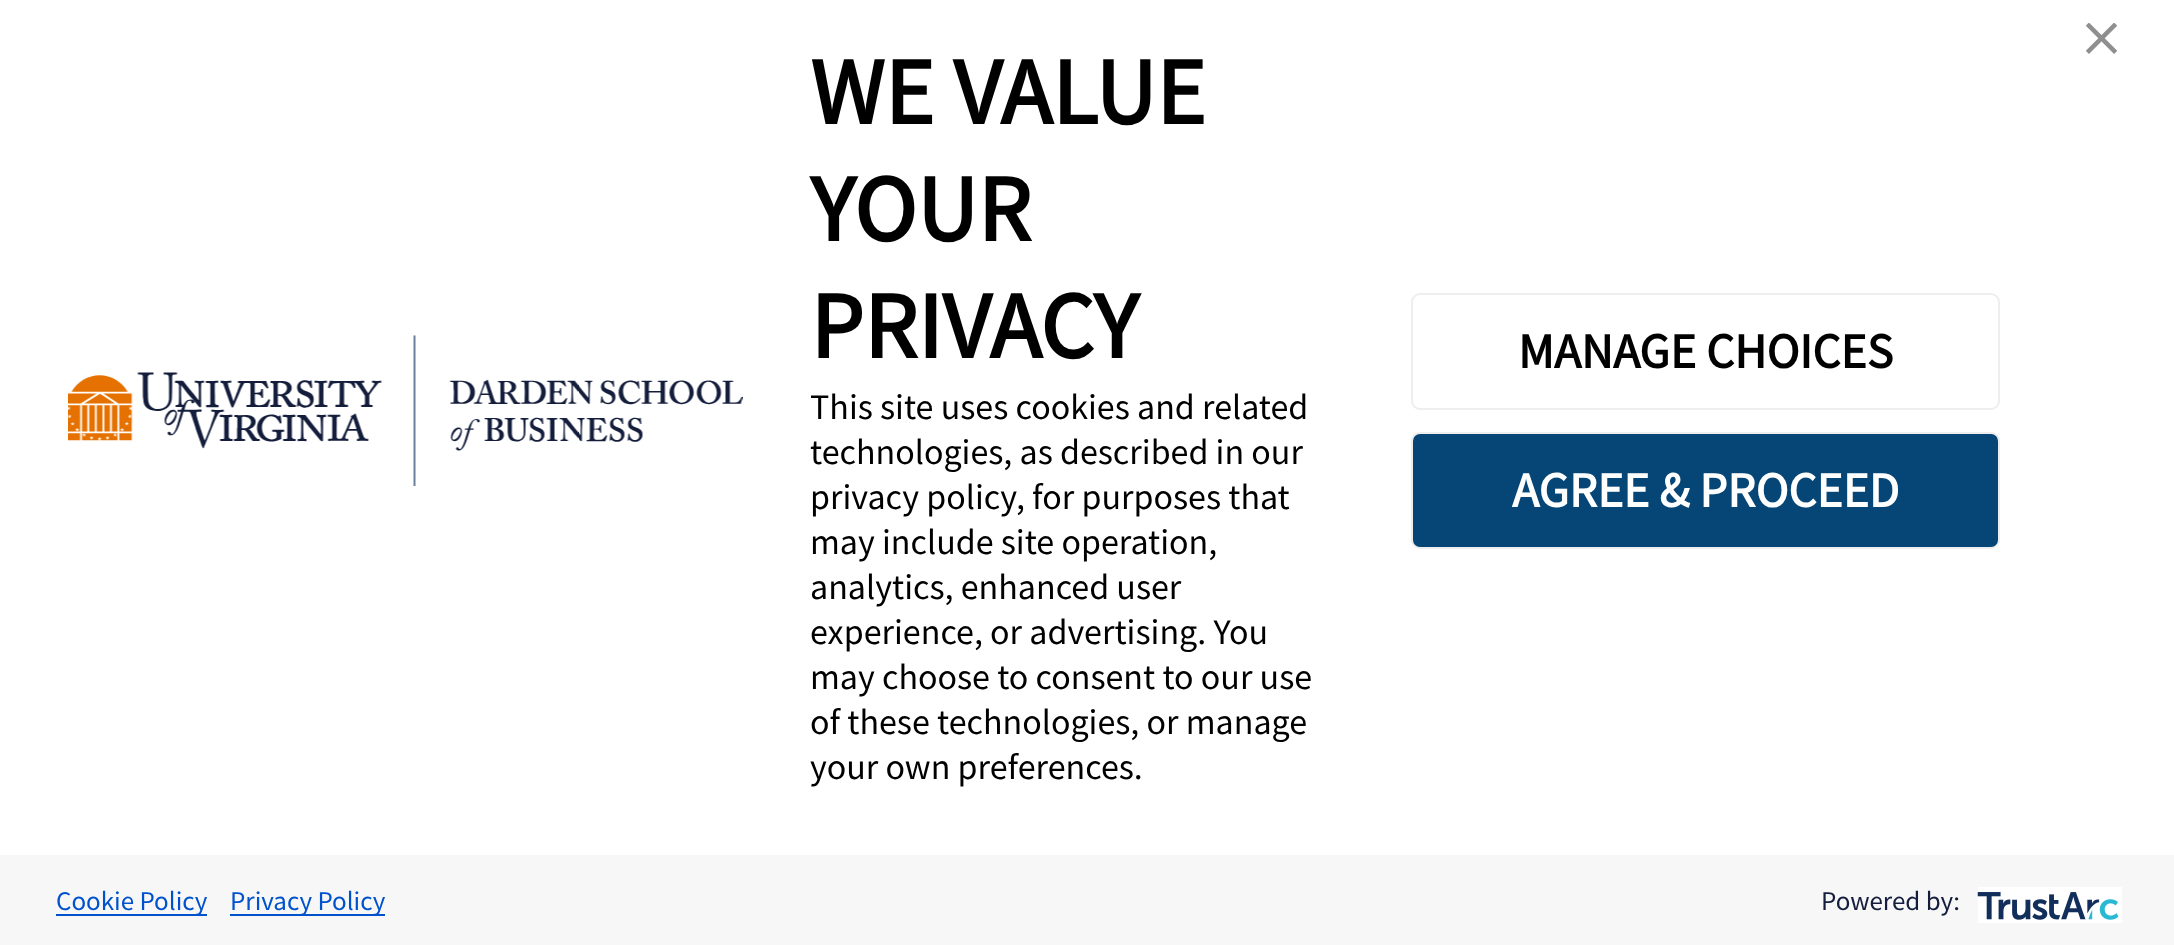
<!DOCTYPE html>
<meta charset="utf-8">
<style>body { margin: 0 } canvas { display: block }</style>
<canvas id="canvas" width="2174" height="945"></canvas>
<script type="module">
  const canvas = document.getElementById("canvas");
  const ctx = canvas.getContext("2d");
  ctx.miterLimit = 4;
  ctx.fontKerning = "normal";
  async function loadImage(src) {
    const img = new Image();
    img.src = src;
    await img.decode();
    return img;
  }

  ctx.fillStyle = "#ffffff";
  ctx.fillRect(0, 0, 2174, 945);
  ctx.drawImage(await loadImage("img1.png"), 2086, 23, 31, 31);
  ctx.drawImage(await loadImage("img2.png"), 68, 335, 675, 151);
  ctx.font = "bold 94.5px Source Sans Pro";
  ctx.fillStyle = "#000000";
  ctx.fillText("WE VALUE", 810, 124);
  ctx.fillText("YOUR", 810, 241);
  ctx.fillText("PRIVACY", 810, 358);
  ctx.font = "36px Source Sans Pro";
  ctx.fillText("This site uses cookies and related", 810, 419);
  ctx.fillText("technologies, as described in our", 810, 464);
  ctx.fillText("privacy policy, for purposes that", 810, 509);
  ctx.fillText("may include site operation,", 810, 554);
  ctx.fillText("analytics, enhanced user", 810, 599);
  ctx.fillText("experience, or advertising. You", 810, 644);
  ctx.fillText("may choose to consent to our use", 810, 689);
  ctx.fillText("of these technologies, or manage", 810, 734);
  ctx.fillText("your own preferences.", 810, 779);
  ctx.beginPath();
  ctx.roundRect(1412, 294, 587, 115, 8);
  ctx.strokeStyle = "#eeeeee";
  ctx.lineWidth = 2;
  ctx.stroke();
  ctx.font = "bold 49.5px Source Sans Pro";
  ctx.fillText("MANAGE CHOICES", 1518, 368);
  ctx.fillStyle = "#064676";
  ctx.beginPath();
  ctx.roundRect(1412, 433, 587, 115, 8);
  ctx.fill();
  ctx.stroke();
  ctx.fillStyle = "#ffffff";
  ctx.fillText("AGREE & PROCEED", 1512, 507);
  ctx.fillStyle = "#f7f7f7";
  ctx.fillRect(0, 855, 2174, 90);
  ctx.fillStyle = "#0052cc";
  ctx.fillRect(56, 914, 151, 2);
  ctx.font = "27px Source Sans Pro";
  ctx.fillText("Cookie Policy", 56, 910);
  ctx.fillRect(230, 914, 155, 2);
  ctx.fillText("Privacy Policy", 230, 910);
  ctx.fillStyle = "#141e3c";
  ctx.fillText("Powered by:", 1821, 910);
  ctx.drawImage(await loadImage("img3.png"), 1977, 887, 145, 36);
</script>
